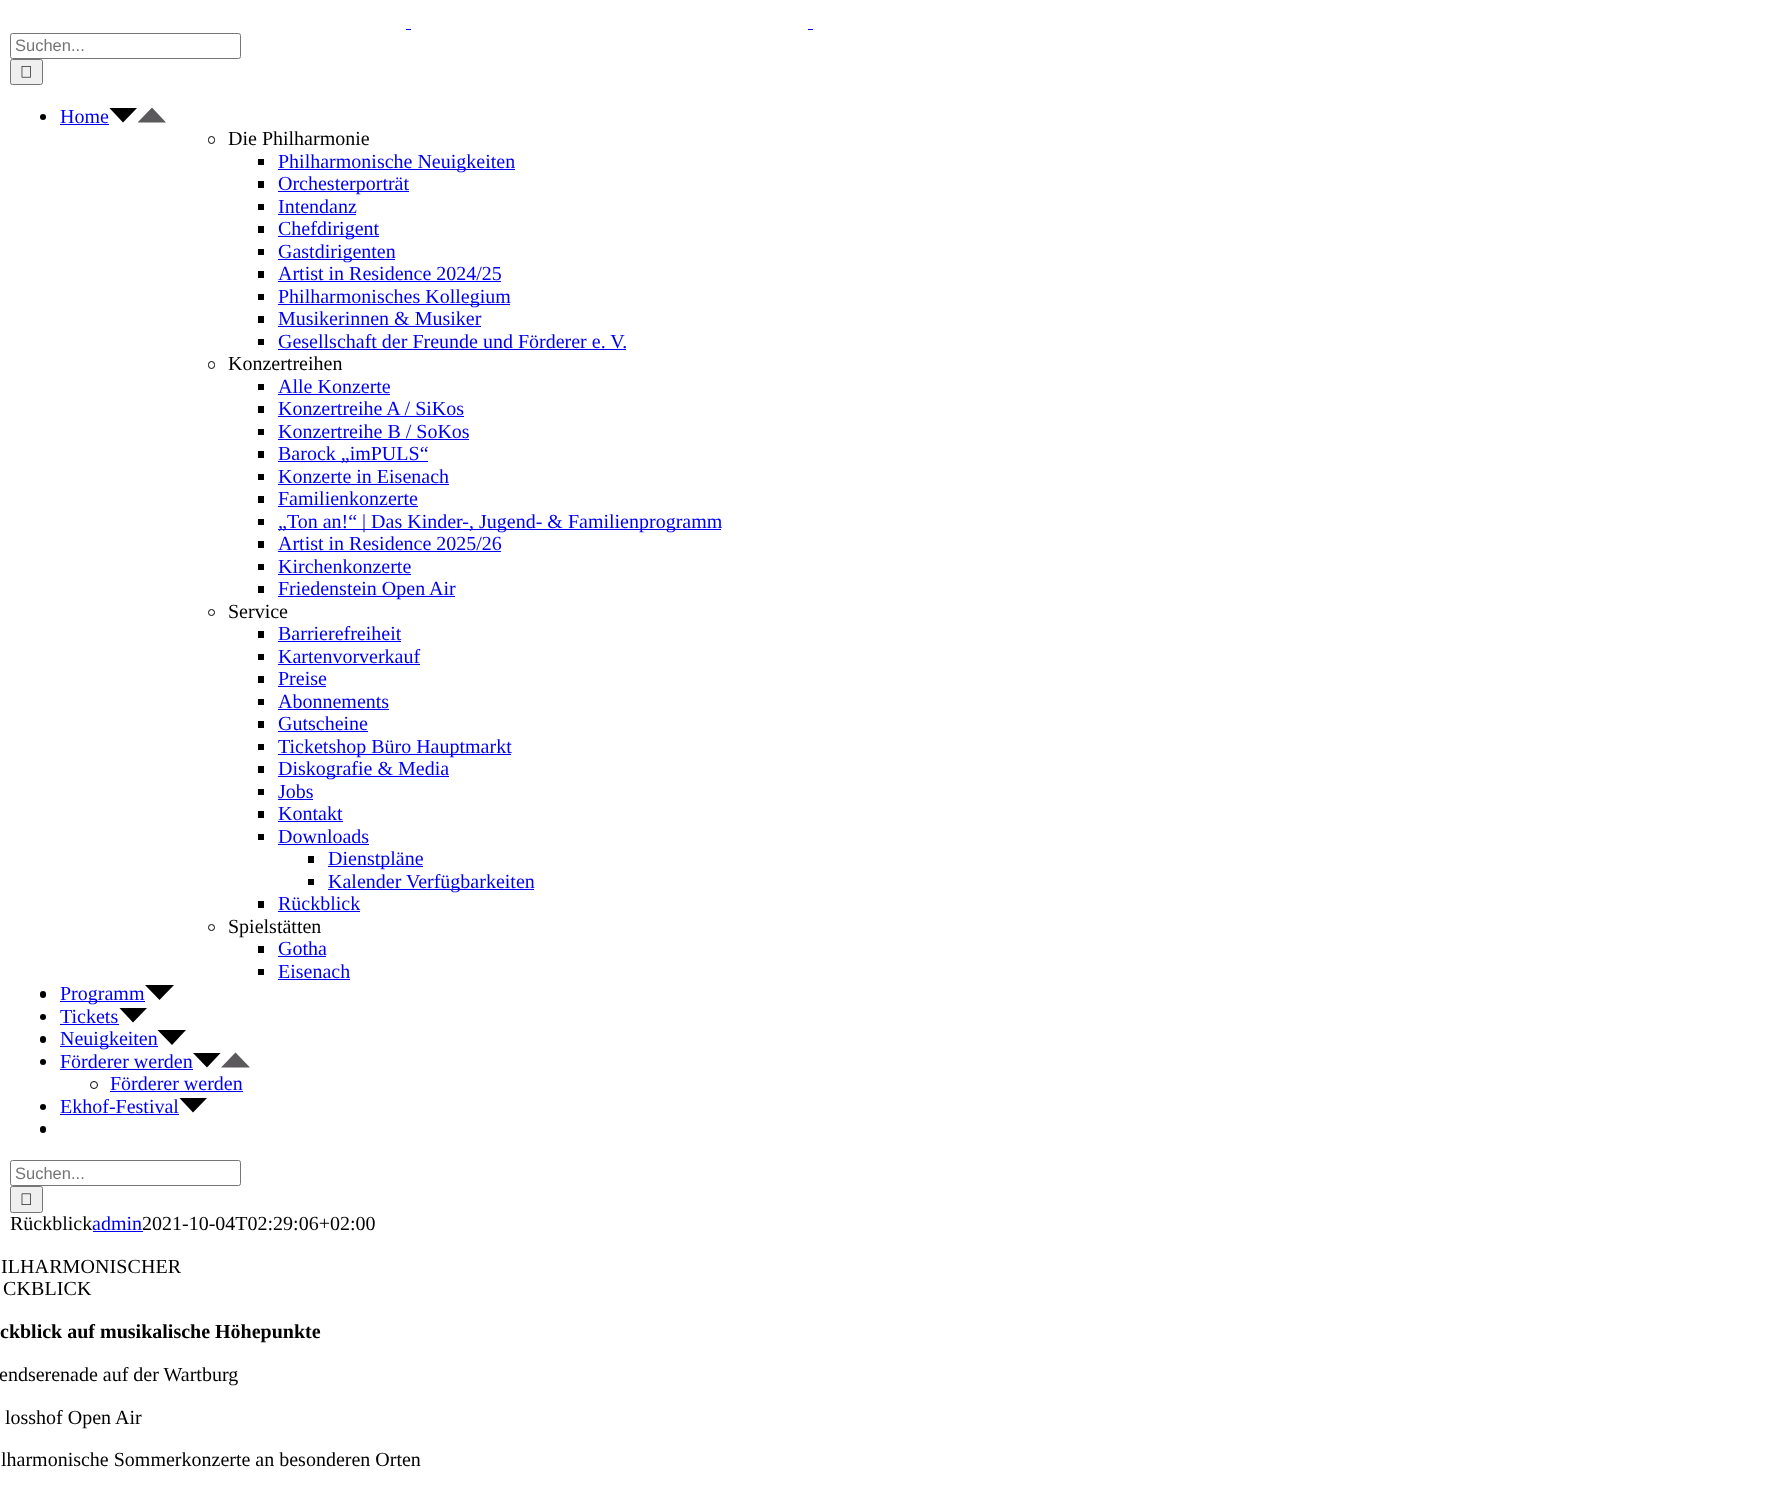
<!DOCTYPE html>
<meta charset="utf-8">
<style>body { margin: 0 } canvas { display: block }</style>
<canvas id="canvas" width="1785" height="1490"></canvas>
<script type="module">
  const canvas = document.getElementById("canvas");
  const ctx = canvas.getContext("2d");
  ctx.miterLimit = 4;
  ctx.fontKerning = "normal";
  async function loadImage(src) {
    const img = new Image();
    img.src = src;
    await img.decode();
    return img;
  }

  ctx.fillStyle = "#ffffff";
  ctx.fillRect(0, 0, 1785, 1490);
  ctx.fillStyle = "#0000ee";
  ctx.fillRect(406, 29, 5, 1);
  ctx.fillRect(808, 29, 5, 1);
  ctx.beginPath();
  ctx.roundRect(10.5, 33.5, 230, 25, 2);
  ctx.strokeStyle = "#767676";
  ctx.stroke();
  ctx.font = "16.5px Liberation Sans";
  ctx.fillStyle = "#757575";
  ctx.fillText("Suchen...", 15, 51);
  ctx.fillStyle = "#efefef";
  ctx.beginPath();
  ctx.roundRect(10.5, 59.5, 32, 25, 2);
  ctx.fill();
  ctx.stroke();
  ctx.drawImage(await loadImage("img1.png"), 21, 66, 10, 12);
  ctx.fillStyle = "#000000";
  ctx.beginPath();
  ctx.arc(43, 117, 3, 0, Math.PI * 2);
  ctx.fill();
  ctx.font = "20px Liberation Serif";
  ctx.fillStyle = "#0000ee";
  ctx.fillText("Home", 60, 123);
  ctx.fillRect(60, 124, 49, 1);
  ctx.save();
  ctx.beginPath();
  ctx.rect(109, 108, 29, 15);
  ctx.clip();
  ctx.fillStyle = "#000000";
  ctx.beginPath();
  ctx.moveTo(109, 107.5);
  ctx.lineTo(123, 122.5);
  ctx.lineTo(137.5, 107.5);
  ctx.closePath();
  ctx.fill();
  ctx.restore();
  ctx.save();
  ctx.beginPath();
  ctx.rect(138, 108, 28, 15);
  ctx.clip();
  ctx.fillStyle = "#5b595b";
  ctx.beginPath();
  ctx.moveTo(137.5, 122.5);
  ctx.lineTo(152, 107.5);
  ctx.lineTo(166, 122.5);
  ctx.closePath();
  ctx.fill();
  ctx.restore();
  ctx.beginPath();
  ctx.roundRect(208.5, 136.5, 6, 7, 3);
  ctx.strokeStyle = "#000000";
  ctx.stroke();
  ctx.fillStyle = "#000000";
  ctx.fillText("Die Philharmonie", 228, 145);
  ctx.fillRect(258, 159, 6, 6);
  ctx.fillStyle = "#0000ee";
  ctx.fillRect(278, 169, 237, 1);
  ctx.fillText("Philharmonische Neuigkeiten", 278, 168);
  ctx.fillStyle = "#000000";
  ctx.fillRect(258, 181, 6, 7);
  ctx.fillStyle = "#0000ee";
  ctx.fillRect(278, 191, 131, 1);
  ctx.fillText("Orchesterporträt", 278, 190);
  ctx.fillStyle = "#000000";
  ctx.fillRect(258, 204, 6, 6);
  ctx.fillStyle = "#0000ee";
  ctx.fillText("Intendanz", 278, 213);
  ctx.fillRect(278, 214, 78, 1);
  ctx.fillStyle = "#000000";
  ctx.fillRect(258, 226, 6, 7);
  ctx.fillStyle = "#0000ee";
  ctx.fillRect(278, 236, 101, 1);
  ctx.fillText("Chefdirigent", 278, 235);
  ctx.fillStyle = "#000000";
  ctx.fillRect(258, 249, 6, 6);
  ctx.fillStyle = "#0000ee";
  ctx.fillRect(278, 259, 117, 1);
  ctx.fillText("Gastdirigenten", 278, 258);
  ctx.fillStyle = "#000000";
  ctx.fillRect(258, 271, 6, 7);
  ctx.fillStyle = "#0000ee";
  ctx.fillText("Artist in Residence 2024/25", 278, 280);
  ctx.fillRect(278, 281, 223, 1);
  ctx.fillStyle = "#000000";
  ctx.fillRect(258, 294, 6, 6);
  ctx.fillStyle = "#0000ee";
  ctx.fillRect(278, 304, 232, 1);
  ctx.fillText("Philharmonisches Kollegium", 278, 303);
  ctx.fillStyle = "#000000";
  ctx.fillRect(258, 316, 6, 7);
  ctx.fillStyle = "#0000ee";
  ctx.fillText("Musikerinnen & Musiker", 278, 325);
  ctx.fillRect(278, 326, 203, 1);
  ctx.fillStyle = "#000000";
  ctx.fillRect(258, 339, 6, 6);
  ctx.fillStyle = "#0000ee";
  ctx.fillText("Gesellschaft der Freunde und Förderer e. V.", 278, 348);
  ctx.fillRect(278, 349, 348, 1);
  ctx.beginPath();
  ctx.roundRect(208.5, 361.5, 6, 7, 3);
  ctx.stroke();
  ctx.fillStyle = "#000000";
  ctx.fillText("Konzertreihen", 228, 370);
  ctx.fillRect(258, 384, 6, 6);
  ctx.fillStyle = "#0000ee";
  ctx.fillText("Alle Konzerte", 278, 393);
  ctx.fillRect(278, 394, 112, 1);
  ctx.fillStyle = "#000000";
  ctx.fillRect(258, 406, 6, 7);
  ctx.fillStyle = "#0000ee";
  ctx.fillText("Konzertreihe A / SiKos", 278, 415);
  ctx.fillRect(278, 416, 186, 1);
  ctx.fillStyle = "#000000";
  ctx.fillRect(258, 429, 6, 6);
  ctx.fillStyle = "#0000ee";
  ctx.fillText("Konzertreihe B / SoKos", 278, 438);
  ctx.fillRect(278, 439, 191, 1);
  ctx.fillStyle = "#000000";
  ctx.fillRect(258, 451, 6, 7);
  ctx.fillStyle = "#0000ee";
  ctx.fillRect(278, 461, 150, 1);
  ctx.fillText("Barock „imPULS“", 278, 460);
  ctx.fillStyle = "#000000";
  ctx.fillRect(258, 474, 6, 6);
  ctx.fillStyle = "#0000ee";
  ctx.fillText("Konzerte in Eisenach", 278, 483);
  ctx.fillRect(278, 484, 171, 1);
  ctx.fillStyle = "#000000";
  ctx.fillRect(258, 496, 6, 7);
  ctx.fillStyle = "#0000ee";
  ctx.fillText("Familienkonzerte", 278, 505);
  ctx.fillRect(278, 506, 140, 1);
  ctx.fillStyle = "#000000";
  ctx.fillRect(258, 519, 6, 6);
  ctx.fillStyle = "#0000ee";
  ctx.fillRect(278, 529, 443, 1);
  ctx.fillText("„Ton an!“ | Das Kinder-, Jugend- & Familienprogramm", 278, 528);
  ctx.fillStyle = "#000000";
  ctx.fillRect(258, 541, 6, 7);
  ctx.fillStyle = "#0000ee";
  ctx.fillText("Artist in Residence 2025/26", 278, 550);
  ctx.fillRect(278, 551, 223, 1);
  ctx.fillStyle = "#000000";
  ctx.fillRect(258, 564, 6, 6);
  ctx.fillStyle = "#0000ee";
  ctx.fillText("Kirchenkonzerte", 278, 573);
  ctx.fillRect(278, 574, 133, 1);
  ctx.fillStyle = "#000000";
  ctx.fillRect(258, 586, 6, 7);
  ctx.fillStyle = "#0000ee";
  ctx.fillRect(278, 596, 177, 1);
  ctx.fillText("Friedenstein Open Air", 278, 595);
  ctx.beginPath();
  ctx.arc(211.5, 612.5, 3, 0, Math.PI * 2);
  ctx.stroke();
  ctx.fillStyle = "#000000";
  ctx.fillText("Service", 228, 618);
  ctx.fillRect(258, 631, 6, 7);
  ctx.fillStyle = "#0000ee";
  ctx.fillText("Barrierefreiheit", 278, 640);
  ctx.fillRect(278, 641, 123, 1);
  ctx.fillStyle = "#000000";
  ctx.fillRect(258, 654, 6, 6);
  ctx.fillStyle = "#0000ee";
  ctx.fillText("Kartenvorverkauf", 278, 663);
  ctx.fillRect(278, 664, 142, 1);
  ctx.fillStyle = "#000000";
  ctx.fillRect(258, 676, 6, 7);
  ctx.fillStyle = "#0000ee";
  ctx.fillText("Preise", 278, 685);
  ctx.fillRect(278, 686, 48, 1);
  ctx.fillStyle = "#000000";
  ctx.fillRect(258, 699, 6, 6);
  ctx.fillStyle = "#0000ee";
  ctx.fillText("Abonnements", 278, 708);
  ctx.fillRect(278, 709, 111, 1);
  ctx.fillStyle = "#000000";
  ctx.fillRect(258, 721, 6, 7);
  ctx.fillStyle = "#0000ee";
  ctx.fillText("Gutscheine", 278, 730);
  ctx.fillRect(278, 731, 90, 1);
  ctx.fillStyle = "#000000";
  ctx.fillRect(258, 744, 6, 6);
  ctx.fillStyle = "#0000ee";
  ctx.fillRect(278, 754, 233, 1);
  ctx.fillText("Ticketshop Büro Hauptmarkt", 278, 753);
  ctx.fillStyle = "#000000";
  ctx.fillRect(258, 766, 6, 7);
  ctx.fillStyle = "#0000ee";
  ctx.fillRect(278, 776, 171, 1);
  ctx.fillText("Diskografie & Media", 278, 775);
  ctx.fillStyle = "#000000";
  ctx.fillRect(258, 789, 6, 6);
  ctx.fillStyle = "#0000ee";
  ctx.fillText("Jobs", 278, 798);
  ctx.fillRect(278, 799, 35, 1);
  ctx.fillStyle = "#000000";
  ctx.fillRect(258, 811, 6, 7);
  ctx.fillStyle = "#0000ee";
  ctx.fillText("Kontakt", 278, 820);
  ctx.fillRect(278, 821, 65, 1);
  ctx.fillStyle = "#000000";
  ctx.fillRect(258, 834, 6, 6);
  ctx.fillStyle = "#0000ee";
  ctx.fillText("Downloads", 278, 843);
  ctx.fillRect(278, 844, 91, 1);
  ctx.fillStyle = "#000000";
  ctx.fillRect(308, 856, 6, 7);
  ctx.fillStyle = "#0000ee";
  ctx.fillRect(328, 866, 95, 1);
  ctx.fillText("Dienstpläne", 328, 865);
  ctx.fillStyle = "#000000";
  ctx.fillRect(308, 879, 6, 6);
  ctx.fillStyle = "#0000ee";
  ctx.fillRect(328, 889, 206, 1);
  ctx.fillText("Kalender Verfügbarkeiten", 328, 888);
  ctx.fillStyle = "#000000";
  ctx.fillRect(258, 901, 6, 7);
  ctx.fillStyle = "#0000ee";
  ctx.fillText("Rückblick", 278, 910);
  ctx.fillRect(278, 911, 82, 1);
  ctx.beginPath();
  ctx.arc(211.5, 927.5, 3, 0, Math.PI * 2);
  ctx.stroke();
  ctx.fillStyle = "#000000";
  ctx.fillText("Spielstätten", 228, 933);
  ctx.fillRect(258, 946, 6, 7);
  ctx.fillStyle = "#0000ee";
  ctx.fillText("Gotha", 278, 955);
  ctx.fillRect(278, 956, 48, 1);
  ctx.fillStyle = "#000000";
  ctx.fillRect(258, 969, 6, 6);
  ctx.fillStyle = "#0000ee";
  ctx.fillText("Eisenach", 278, 978);
  ctx.fillRect(278, 979, 72, 1);
  ctx.fillStyle = "#000000";
  ctx.beginPath();
  ctx.roundRect(40, 991, 6, 7, 3);
  ctx.fill();
  ctx.fillStyle = "#0000ee";
  ctx.fillRect(60, 1001, 85, 1);
  ctx.fillText("Programm", 60, 1000);
  ctx.fillStyle = "#000000";
  ctx.beginPath();
  ctx.moveTo(145, 985);
  ctx.lineTo(159.5, 1000);
  ctx.lineTo(174, 985);
  ctx.closePath();
  ctx.fill();
  ctx.beginPath();
  ctx.arc(43, 1017, 3, 0, Math.PI * 2);
  ctx.fill();
  ctx.fillStyle = "#0000ee";
  ctx.fillText("Tickets", 60, 1023);
  ctx.fillRect(60, 1024, 59, 1);
  ctx.save();
  ctx.beginPath();
  ctx.rect(119, 1008, 29, 15);
  ctx.clip();
  ctx.fillStyle = "#000000";
  ctx.beginPath();
  ctx.moveTo(119, 1007.5);
  ctx.lineTo(133, 1022.5);
  ctx.lineTo(147.5, 1007.5);
  ctx.closePath();
  ctx.fill();
  ctx.restore();
  ctx.fillStyle = "#000000";
  ctx.beginPath();
  ctx.roundRect(40, 1036, 6, 7, 3);
  ctx.fill();
  ctx.fillStyle = "#0000ee";
  ctx.fillRect(60, 1046, 98, 1);
  ctx.fillText("Neuigkeiten", 60, 1045);
  ctx.fillStyle = "#000000";
  ctx.beginPath();
  ctx.moveTo(157.5, 1030);
  ctx.lineTo(172, 1045);
  ctx.lineTo(186, 1030);
  ctx.closePath();
  ctx.fill();
  ctx.beginPath();
  ctx.arc(43, 1062, 3, 0, Math.PI * 2);
  ctx.fill();
  ctx.fillStyle = "#0000ee";
  ctx.fillText("Förderer werden", 60, 1068);
  ctx.fillRect(60, 1069, 133, 1);
  ctx.save();
  ctx.beginPath();
  ctx.rect(193, 1053, 28, 15);
  ctx.clip();
  ctx.fillStyle = "#000000";
  ctx.beginPath();
  ctx.moveTo(192.5, 1052.5);
  ctx.lineTo(207, 1067.5);
  ctx.lineTo(221, 1052.5);
  ctx.closePath();
  ctx.fill();
  ctx.restore();
  ctx.fillStyle = "#5b595b";
  ctx.beginPath();
  ctx.moveTo(221, 1067.5);
  ctx.lineTo(235.5, 1052.5);
  ctx.lineTo(250, 1067.5);
  ctx.closePath();
  ctx.fill();
  ctx.beginPath();
  ctx.arc(94, 1085, 3.5, 0, Math.PI * 2);
  ctx.stroke();
  ctx.fillStyle = "#0000ee";
  ctx.fillText("Förderer werden", 110, 1090);
  ctx.fillRect(110, 1091, 133, 1);
  ctx.fillStyle = "#000000";
  ctx.beginPath();
  ctx.arc(43, 1107, 3, 0, Math.PI * 2);
  ctx.fill();
  ctx.fillStyle = "#0000ee";
  ctx.fillText("Ekhof-Festival", 60, 1113);
  ctx.fillRect(60, 1114, 119, 1);
  ctx.save();
  ctx.beginPath();
  ctx.rect(179, 1098, 29, 15);
  ctx.clip();
  ctx.fillStyle = "#000000";
  ctx.beginPath();
  ctx.moveTo(179, 1097.5);
  ctx.lineTo(193, 1112.5);
  ctx.lineTo(207.5, 1097.5);
  ctx.closePath();
  ctx.fill();
  ctx.restore();
  ctx.fillStyle = "#000000";
  ctx.beginPath();
  ctx.roundRect(40, 1126, 6, 7, 3);
  ctx.fill();
  ctx.beginPath();
  ctx.roundRect(10.5, 1160.5, 230, 25, 2);
  ctx.strokeStyle = "#767676";
  ctx.stroke();
  ctx.font = "16.5px Liberation Sans";
  ctx.fillStyle = "#757575";
  ctx.fillText("Suchen...", 15, 1179);
  ctx.fillStyle = "#efefef";
  ctx.beginPath();
  ctx.roundRect(10.5, 1186.5, 32, 26, 2);
  ctx.fill();
  ctx.stroke();
  ctx.drawImage(await loadImage("img2.png"), 21, 1193, 10, 12);
  ctx.font = "20px Liberation Serif";
  ctx.fillStyle = "#000000";
  ctx.fillText("Rückblick", 10, 1230);
  ctx.fillStyle = "#0000ee";
  ctx.fillText("admin", 92, 1230);
  ctx.fillRect(93, 1231, 50, 1);
  ctx.fillStyle = "#000000";
  ctx.fillText("2021-10-04T02:29:06+02:00", 142, 1230);
  ctx.letterSpacing = "0.1px";
  ctx.fillText("ILHARMONISCHER", 1, 1273);
  ctx.fillText("CKBLICK", 3, 1295);
  ctx.letterSpacing = "0px";
  ctx.font = "bold 20px Liberation Serif";
  ctx.fillText("ckblick auf musikalische Höhepunkte", 0, 1338);
  ctx.font = "20px Liberation Serif";
  ctx.fillText("endserenade auf der Wartburg", -1, 1381);
  ctx.fillText("losshof Open Air", 5, 1424);
  ctx.fillText("lharmonische Sommerkonzerte an besonderen Orten", 1, 1466);
</script>
